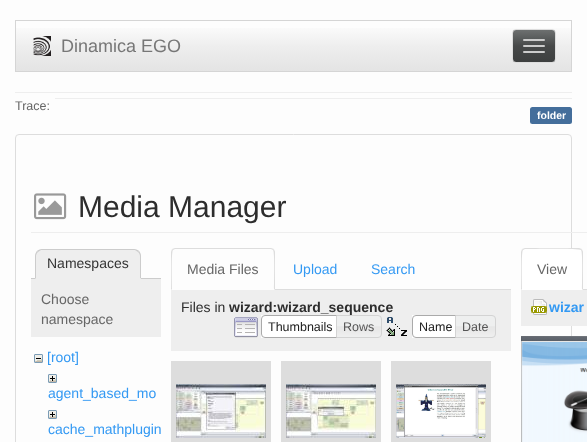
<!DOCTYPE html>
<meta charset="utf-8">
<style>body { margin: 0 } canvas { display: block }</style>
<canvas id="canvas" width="587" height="442"></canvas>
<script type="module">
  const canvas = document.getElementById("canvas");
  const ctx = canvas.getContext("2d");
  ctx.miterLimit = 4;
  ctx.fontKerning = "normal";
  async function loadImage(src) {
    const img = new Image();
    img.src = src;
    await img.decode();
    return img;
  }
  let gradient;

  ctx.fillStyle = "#fdfdfd";
  ctx.fillRect(0, 0, 587, 442);
  gradient = ctx.createLinearGradient(294, 21, 294, 71);
  gradient.addColorStop(0, "#ffffff");
  gradient.addColorStop(0.5, "#eeeeee");
  gradient.addColorStop(1, "#e4e4e4");
  ctx.fillStyle = gradient;
  ctx.fillRect(16, 28, 555, 43);
  ctx.strokeStyle = "#d5d5d5";
  ctx.strokeRect(15.5, 20.5, 556, 51);
  ctx.drawImage(await loadImage("img1.png"), 33, 36, 18, 20);
  ctx.font = "18px Liberation Sans";
  ctx.fillStyle = "#777777";
  ctx.fillText("Dinamica EGO", 61, 52);
  ctx.save();
  ctx.beginPath();
  ctx.roundRect(512, 29, 44, 34, 4);
  ctx.clip();
  gradient = ctx.createLinearGradient(534, 30, 534, 62);
  gradient.addColorStop(0, "#6d7070");
  gradient.addColorStop(0.5, "#474949");
  gradient.addColorStop(1, "#3d3f3f");
  ctx.fillStyle = gradient;
  ctx.fillRect(513, 30, 42, 32);
  ctx.restore();
  ctx.beginPath();
  ctx.roundRect(512.5, 29.5, 43, 33, 3.5);
  ctx.strokeStyle = "#dddddd";
  ctx.stroke();
  ctx.fillStyle = "#cccccc";
  ctx.beginPath();
  ctx.roundRect(523, 39, 22, 2, 1);
  ctx.fill();
  ctx.beginPath();
  ctx.roundRect(523, 45, 22, 2, 1);
  ctx.fill();
  ctx.beginPath();
  ctx.roundRect(523, 51, 22, 2, 1);
  ctx.fill();
  ctx.fillStyle = "#eeeeee";
  ctx.fillRect(15, 92, 557, 1);
  ctx.fillRect(55, 98, 517, 1);
  ctx.font = "12.5px Liberation Sans";
  ctx.fillStyle = "#666666";
  ctx.fillText("Trace:", 15, 110);
  ctx.fillStyle = "#446e9b";
  ctx.beginPath();
  ctx.roundRect(530, 107, 42, 17, 2.5);
  ctx.fill();
  ctx.font = "bold 10.5px Liberation Sans";
  ctx.fillStyle = "#ffffff";
  ctx.fillText("folder", 537, 119);
  ctx.beginPath();
  ctx.roundRect(15.5, 134.5, 556, 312, 3.5);
  ctx.stroke();
  ctx.fillStyle = "#eeeeee";
  ctx.fillRect(31, 232, 556, 1);
  ctx.drawImage(await loadImage("img2.png"), 34, 193, 33, 27);
  ctx.font = "30px Liberation Sans";
  ctx.fillStyle = "#2d2d2d";
  ctx.fillText("Media Manager", 78, 217);
  ctx.fillStyle = "#cccccc";
  ctx.fillRect(31, 278, 130, 1);
  ctx.fillStyle = "#eeeeee";
  ctx.beginPath();
  ctx.roundRect(35, 249, 106, 30, [7, 7, 0, 0]);
  ctx.fill();
  ctx.fillStyle = "#cccccc";
  ctx.beginPath();
  ctx.moveTo(42, 249);
  ctx.bezierCurveTo(40, 249, 38, 250, 37, 251);
  ctx.lineTo(38, 252);
  ctx.lineTo(41, 250);
  ctx.lineTo(135, 250);
  ctx.lineTo(138, 252);
  ctx.lineTo(139, 251);
  ctx.bezierCurveTo(138, 250, 136, 249, 134, 249);
  ctx.closePath();
  ctx.fill();
  ctx.beginPath();
  ctx.moveTo(141, 279);
  ctx.lineTo(141, 256);
  ctx.bezierCurveTo(141, 254, 140, 252, 139, 251);
  ctx.lineTo(138, 252);
  ctx.bezierCurveTo(139, 253, 140, 254.5, 140, 256);
  ctx.lineTo(140, 278);
  ctx.closePath();
  ctx.fill();
  ctx.fillStyle = "#eeeeee";
  ctx.beginPath();
  ctx.moveTo(141, 279);
  ctx.lineTo(140, 278);
  ctx.lineTo(36, 278);
  ctx.lineTo(35, 279);
  ctx.closePath();
  ctx.fill();
  ctx.fillStyle = "#cccccc";
  ctx.beginPath();
  ctx.moveTo(35, 279);
  ctx.lineTo(36, 278);
  ctx.lineTo(36, 256);
  ctx.bezierCurveTo(36, 254.5, 37, 253, 38, 252);
  ctx.lineTo(37, 251);
  ctx.bezierCurveTo(36, 252, 35, 254, 35, 256);
  ctx.closePath();
  ctx.fill();
  ctx.font = "14px Liberation Sans";
  ctx.fillStyle = "#333333";
  ctx.fillText("Namespaces", 47, 268);
  ctx.fillStyle = "#eeeeee";
  ctx.fillRect(31, 279, 130, 58);
  ctx.fillStyle = "#666666";
  ctx.fillText("Choose", 41, 304);
  ctx.fillText("namespace", 41, 324);
  ctx.drawImage(await loadImage("img3.png"), 34, 354, 9, 9);
  ctx.fillStyle = "#3399f3";
  ctx.fillText("[root]", 47, 362);
  ctx.drawImage(await loadImage("img4.png"), 48, 374, 9, 9);
  ctx.fillText("agent_based_mo", 48, 398);
  ctx.drawImage(await loadImage("img4.png"), 48, 410, 9, 9);
  ctx.fillText("cache_mathplugin", 48, 434);
  ctx.fillStyle = "#dddddd";
  ctx.fillRect(275, 289, 236, 1);
  ctx.beginPath();
  ctx.moveTo(175, 248);
  ctx.lineTo(172, 249);
  ctx.lineTo(173, 250);
  ctx.lineTo(175, 249);
  ctx.lineTo(271, 249);
  ctx.lineTo(273, 250);
  ctx.lineTo(274, 249);
  ctx.lineTo(271, 248);
  ctx.closePath();
  ctx.fill();
  ctx.beginPath();
  ctx.moveTo(275, 290);
  ctx.lineTo(275, 252);
  ctx.bezierCurveTo(275, 251, 274, 250, 274, 249);
  ctx.lineTo(273, 250);
  ctx.bezierCurveTo(275, 252, 274, 284, 274, 289);
  ctx.closePath();
  ctx.fill();
  ctx.beginPath();
  ctx.moveTo(171, 290);
  ctx.lineTo(172, 289);
  ctx.bezierCurveTo(172, 284, 171, 252, 173, 250);
  ctx.lineTo(172, 249);
  ctx.lineTo(171, 252);
  ctx.closePath();
  ctx.fill();
  ctx.fillStyle = "#666666";
  ctx.fillText("Media Files", 187, 274);
  ctx.fillStyle = "#3399f3";
  ctx.fillText("Upload", 293, 274);
  ctx.fillText("Search", 371, 274);
  ctx.fillStyle = "#eeeeee";
  ctx.fillRect(171, 290, 340, 61);
  ctx.fillStyle = "#2d2d2d";
  ctx.fillText("Files in", 181, 312);
  ctx.font = "bold 14px Liberation Sans";
  ctx.fillText("wizard:wizard_sequence", 229, 312);
  ctx.drawImage(await loadImage("img5.png"), 234, 317, 24, 21);
  ctx.fillStyle = "#ffffff";
  ctx.fillRect(261, 315, 75, 23);
  ctx.beginPath();
  ctx.roundRect(261.5, 315.5, 79, 22, [3.5, 0, 0, 3.5]);
  ctx.strokeStyle = "#aaaaaa";
  ctx.stroke();
  ctx.font = "12.5px Liberation Sans";
  ctx.fillStyle = "#212121";
  ctx.fillText("Thumbnails", 268, 331);
  ctx.drawImage(await loadImage("img6.png"), 337, 315, 45, 23);
  ctx.beginPath();
  ctx.roundRect(336.5, 315.5, 45, 22, [0, 3.5, 3.5, 0]);
  ctx.strokeStyle = "#d3d3d3";
  ctx.stroke();
  ctx.fillStyle = "#555555";
  ctx.fillText("Rows", 343, 331);
  ctx.drawImage(await loadImage("img7.png"), 386, 317, 21, 19);
  ctx.fillStyle = "#ffffff";
  ctx.fillRect(412, 315, 43, 23);
  ctx.beginPath();
  ctx.roundRect(412.5, 315.5, 47, 22, [3.5, 0, 0, 3.5]);
  ctx.strokeStyle = "#aaaaaa";
  ctx.stroke();
  ctx.fillStyle = "#212121";
  ctx.fillText("Name", 419, 331);
  ctx.drawImage(await loadImage("img8.png"), 456, 315, 40, 23);
  ctx.beginPath();
  ctx.roundRect(455.5, 315.5, 40, 22, [0, 3.5, 3.5, 0]);
  ctx.strokeStyle = "#d3d3d3";
  ctx.stroke();
  ctx.fillStyle = "#555555";
  ctx.fillText("Date", 462, 331);
  ctx.fillStyle = "#dddddd";
  ctx.fillRect(171, 361, 100, 81);
  ctx.drawImage(await loadImage("img9.png"), 176, 384, 90, 54);
  ctx.fillRect(281, 361, 100, 81);
  ctx.drawImage(await loadImage("img10.png"), 286, 384, 90, 54);
  ctx.fillRect(391, 361, 100, 81);
  ctx.drawImage(await loadImage("img11.png"), 396, 384, 90, 54);
  ctx.fillRect(583, 289, 4, 1);
  ctx.fillStyle = "#ffffff";
  ctx.beginPath();
  ctx.roundRect(521, 248, 62, 42, [4, 4, 0, 0]);
  ctx.fill();
  ctx.fillStyle = "#dddddd";
  ctx.beginPath();
  ctx.moveTo(525, 248);
  ctx.lineTo(522, 249);
  ctx.lineTo(523, 250);
  ctx.lineTo(525, 249);
  ctx.bezierCurveTo(530, 249, 579, 248, 581, 250);
  ctx.lineTo(582, 249);
  ctx.lineTo(579, 248);
  ctx.closePath();
  ctx.fill();
  ctx.beginPath();
  ctx.moveTo(583, 290);
  ctx.lineTo(583, 252);
  ctx.bezierCurveTo(583, 251, 582, 250, 582, 249);
  ctx.lineTo(581, 250);
  ctx.bezierCurveTo(583, 252, 582, 284, 582, 289);
  ctx.closePath();
  ctx.moveTo(521, 290);
  ctx.lineTo(522, 289);
  ctx.bezierCurveTo(522, 284, 521, 252, 523, 250);
  ctx.lineTo(522, 249);
  ctx.lineTo(521, 252);
  ctx.closePath();
  ctx.fill();
  ctx.font = "14px Liberation Sans";
  ctx.fillStyle = "#666666";
  ctx.fillText("View", 537, 274);
  ctx.fillStyle = "#eeeeee";
  ctx.fillRect(521, 290, 66, 36);
  ctx.drawImage(await loadImage("img12.png"), 531, 299, 16, 16);
  ctx.font = "bold 14px Liberation Sans";
  ctx.fillStyle = "#3399f3";
  ctx.fillText("wizar", 549, 312);
  ctx.drawImage(await loadImage("img13.png"), 521, 336, 66, 106);
</script>
